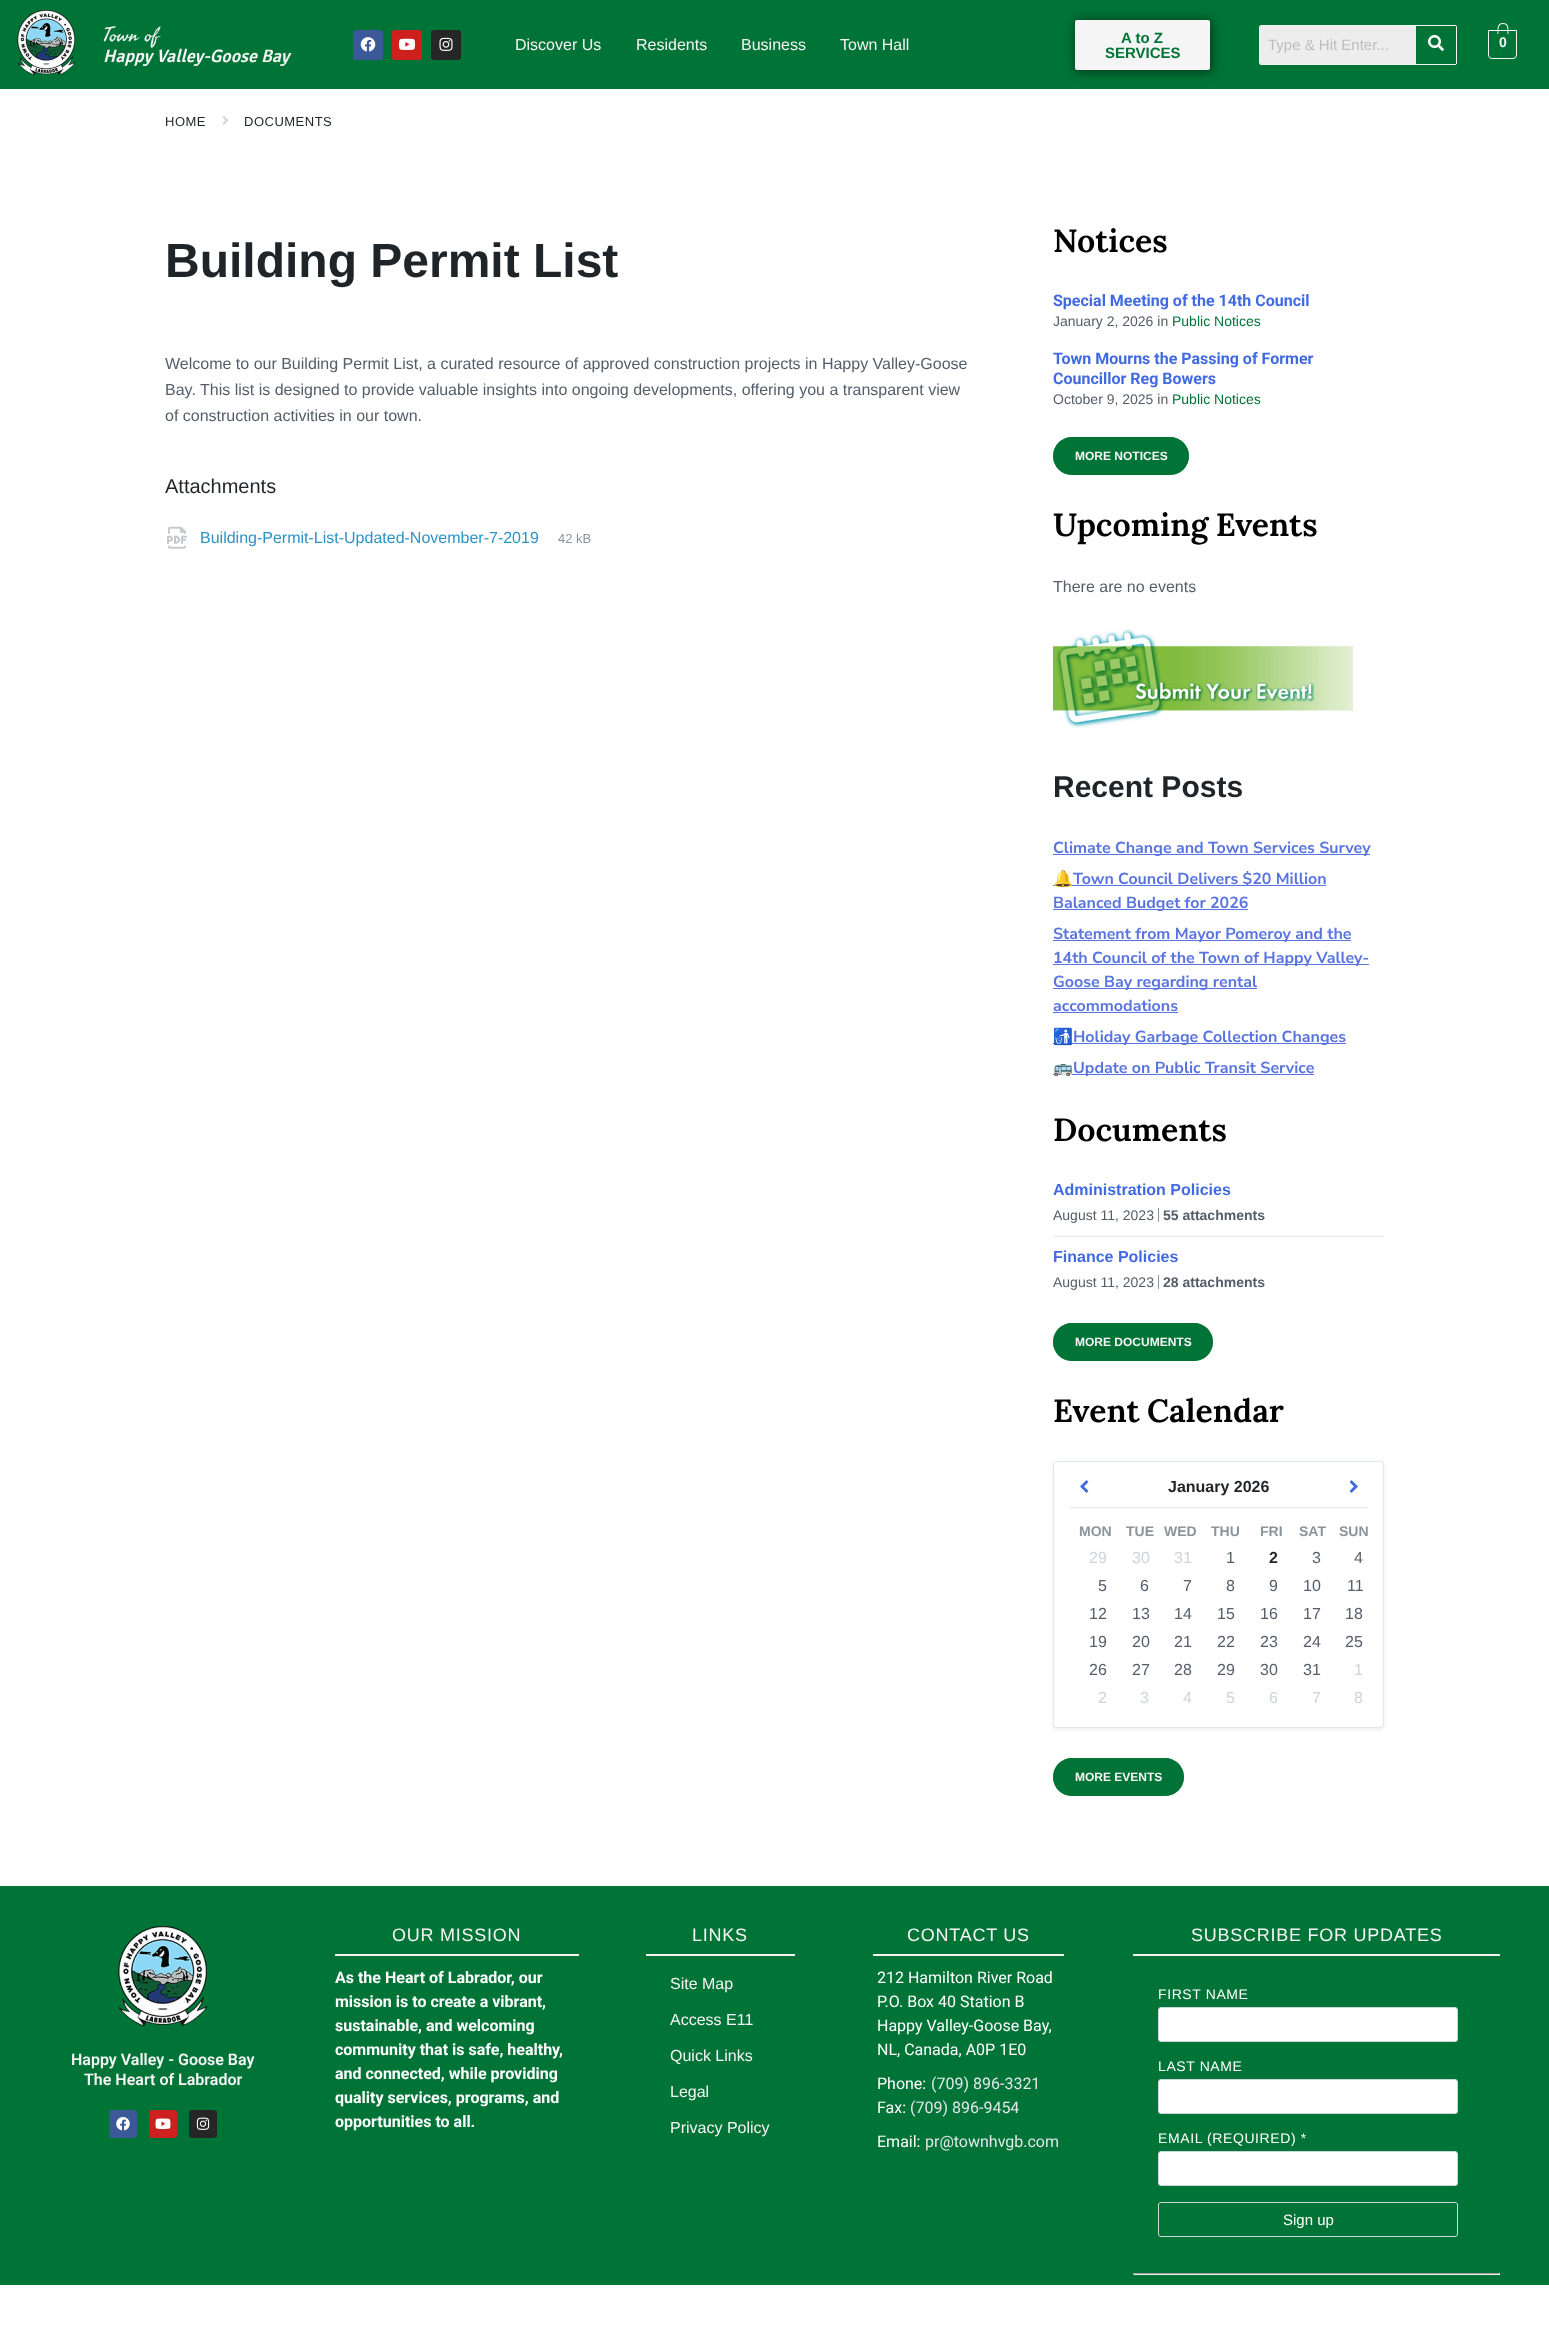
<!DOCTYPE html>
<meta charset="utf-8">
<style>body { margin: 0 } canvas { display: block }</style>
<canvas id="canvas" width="1549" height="2327"></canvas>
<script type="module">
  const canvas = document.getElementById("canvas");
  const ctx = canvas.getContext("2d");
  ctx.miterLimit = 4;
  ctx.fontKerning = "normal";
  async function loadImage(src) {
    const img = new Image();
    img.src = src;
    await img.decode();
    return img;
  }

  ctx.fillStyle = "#ffffff";
  ctx.fillRect(0, 0, 1549, 2327);
  ctx.fillStyle = "#007336";
  ctx.fillRect(0, 0, 1549, 89);
  ctx.drawImage(await loadImage("img1.png"), 17, 10, 59, 65);
  ctx.font = "20px Taprom";
  ctx.fillStyle = "#f5f5f5";
  ctx.fillText("Town of", 103, 41);
  ctx.font = "italic 600 18px Signika Negative";
  ctx.fillText("Happy Valley-Goose Bay", 103, 62);
  ctx.fillStyle = "#3b5998";
  ctx.beginPath();
  ctx.roundRect(353, 30, 30, 30, 3);
  ctx.fill();
  ctx.drawImage(await loadImage("img2.png"), 360, 37, 16, 15);
  ctx.fillStyle = "#cd201f";
  ctx.beginPath();
  ctx.roundRect(392, 30, 30, 30, 3);
  ctx.fill();
  ctx.drawImage(await loadImage("img3.png"), 399, 38, 16, 12);
  ctx.fillStyle = "#262626";
  ctx.beginPath();
  ctx.roundRect(431, 30, 30, 30, 3);
  ctx.fill();
  ctx.drawImage(await loadImage("img4.png"), 439, 37, 14, 14);
  ctx.font = "16px Liberation Sans";
  ctx.fillStyle = "#f5f5f5";
  ctx.fillText("Discover Us", 515, 50);
  ctx.fillText("Residents", 636, 50);
  ctx.fillText("Business", 741, 50);
  ctx.fillText("Town Hall", 840, 50);
  ctx.fillStyle = "rgba(0, 0, 0, 0.5)";
  ctx.filter = "blur(5px)";
  ctx.beginPath();
  ctx.roundRect(1075, 20, 137, 52, 3);
  ctx.fill();
  ctx.filter = "none";
  ctx.fillStyle = "#f5f5f5";
  ctx.beginPath();
  ctx.roundRect(1075, 20, 135, 50, 2);
  ctx.fill();
  ctx.font = "bold 15px Liberation Sans";
  ctx.fillStyle = "#007336";
  ctx.fillText("A to Z", 1121, 43);
  ctx.fillText("SERVICES", 1105, 58);
  ctx.beginPath();
  ctx.roundRect(1259.5, 25.5, 197, 39, 1.5);
  ctx.strokeStyle = "#f5f5f5";
  ctx.stroke();
  ctx.fillStyle = "#ededed";
  ctx.beginPath();
  ctx.roundRect(1260, 26, 156, 38, [1, 0, 0, 1]);
  ctx.fill();
  ctx.font = "15px Liberation Sans";
  ctx.fillStyle = "#bdbdbd";
  ctx.fillText("Type & Hit Enter...", 1268, 50);
  ctx.fillStyle = "#007336";
  ctx.beginPath();
  ctx.roundRect(1416, 26, 40, 38, [0, 1, 1, 0]);
  ctx.fill();
  ctx.drawImage(await loadImage("img5.png"), 1428, 35, 16, 16);
  ctx.beginPath();
  ctx.roundRect(1488.5, 30.5, 28, 28, [0, 0, 3.5, 3.5]);
  ctx.stroke();
  ctx.fillStyle = "#f5f5f5";
  ctx.beginPath();
  ctx.moveTo(1503, 23);
  ctx.bezierCurveTo(1509.5, 23, 1508.5, 29.5, 1508.5, 34);
  ctx.lineTo(1497.5, 34);
  ctx.bezierCurveTo(1497.5, 29.5, 1496.5, 23, 1503, 23);
  ctx.closePath();
  ctx.moveTo(1503, 24);
  ctx.bezierCurveTo(1508.5, 24, 1507.5, 30.5, 1507.5, 34);
  ctx.lineTo(1498.5, 34);
  ctx.bezierCurveTo(1498.5, 30.5, 1497.5, 24, 1503, 24);
  ctx.closePath();
  ctx.fill("evenodd");
  ctx.font = "bold 14px Liberation Sans";
  ctx.fillText("0", 1499, 47);
  ctx.letterSpacing = "0.5px";
  ctx.font = "13px Liberation Sans";
  ctx.fillStyle = "#1e2427";
  ctx.fillText("HOME", 165, 126);
  ctx.drawImage(await loadImage("img6.png"), 222, 116, 7, 9);
  ctx.fillText("DOCUMENTS", 244, 126);
  ctx.letterSpacing = "0px";
  ctx.font = "bold 48px Liberation Sans";
  ctx.fillText("Building Permit List", 165, 277);
  ctx.font = "16px Liberation Sans";
  ctx.fillStyle = "#545e69";
  ctx.fillText("Welcome to our Building Permit List, a curated resource of approved construction projects in Happy Valley-Goose", 165, 369);
  ctx.fillText("Bay. This list is designed to provide valuable insights into ongoing developments, offering you a transparent view", 165, 395);
  ctx.fillText("of construction activities in our town.", 165, 421);
  ctx.font = "20px Liberation Sans";
  ctx.fillStyle = "#1e2427";
  ctx.fillText("Attachments", 165, 493);
  ctx.drawImage(await loadImage("img7.png"), 167, 526, 20, 23);
  ctx.font = "16px Liberation Sans";
  ctx.fillStyle = "#2d93c5";
  ctx.fillText("Building-Permit-List-Updated-November-7-2019", 200, 543);
  ctx.font = "13px Liberation Sans";
  ctx.fillStyle = "#8a949b";
  ctx.fillText("42 kB", 558, 543);
  ctx.font = "600 32px Lora";
  ctx.fillStyle = "#000000";
  ctx.fillText("Notices", 1053, 252);
  ctx.font = "bold 16px Roboto";
  ctx.fillStyle = "#4169e1";
  ctx.fillText("Special Meeting of the 14th Council", 1053, 306);
  ctx.font = "14px Liberation Sans";
  ctx.fillStyle = "#545e69";
  ctx.fillText("January 2, 2026 in", 1053, 326);
  ctx.fillStyle = "#007336";
  ctx.fillText("Public Notices", 1172, 326);
  ctx.font = "bold 16px Roboto";
  ctx.fillStyle = "#4169e1";
  ctx.fillText("Town Mourns the Passing of Former", 1053, 364);
  ctx.fillText("Councillor Reg Bowers", 1053, 384);
  ctx.font = "14px Liberation Sans";
  ctx.fillStyle = "#545e69";
  ctx.fillText("October 9, 2025 in", 1053, 404);
  ctx.fillStyle = "#007336";
  ctx.fillText("Public Notices", 1172, 404);
  ctx.beginPath();
  ctx.roundRect(1053, 437, 136, 38, 19);
  ctx.fill();
  ctx.beginPath();
  ctx.roundRect(1054, 438, 134, 36, 18);
  ctx.strokeStyle = "rgba(0, 115, 54, 0.6)";
  ctx.lineWidth = 2;
  ctx.stroke();
  ctx.font = "bold 12px Liberation Sans";
  ctx.fillStyle = "#f5f5f5";
  ctx.fillText("MORE NOTICES", 1075, 460);
  ctx.wordSpacing = "-1px";
  ctx.font = "600 32px Lora";
  ctx.fillStyle = "#000000";
  ctx.fillText("Upcoming Events", 1053, 536);
  ctx.wordSpacing = "0px";
  ctx.font = "16px Liberation Sans";
  ctx.fillStyle = "#545e69";
  ctx.fillText("There are no events", 1053, 592);
  ctx.drawImage(await loadImage("img8.png"), 1053, 629, 300, 99);
  ctx.font = "bold 30px Liberation Sans";
  ctx.fillStyle = "#1e2427";
  ctx.fillText("Recent Posts", 1053, 797);
  ctx.fillStyle = "#5974e1";
  ctx.fillRect(1053, 854, 317, 1);
  ctx.font = "bold 16px Nunito Sans";
  ctx.fillText("Climate Change and Town Services Survey", 1053, 853);
  ctx.fillRect(1053, 885, 273, 1);
  ctx.font = "bold 16px Noto Color Emoji";
  ctx.fillText("🔔", 1053, 884);
  ctx.font = "bold 16px Nunito Sans";
  ctx.fillText("Town Council Delivers $20 Million", 1073, 884);
  ctx.fillRect(1053, 909, 195, 1);
  ctx.fillText("Balanced Budget for 2026", 1053, 908);
  ctx.fillRect(1053, 940, 298, 1);
  ctx.fillText("Statement from Mayor Pomeroy and the", 1053, 939);
  ctx.fillRect(1053, 964, 316, 1);
  ctx.fillText("14th Council of the Town of Happy Valley-", 1053, 963);
  ctx.fillRect(1053, 988, 204, 1);
  ctx.fillText("Goose Bay regarding rental", 1053, 987);
  ctx.fillText("accommodations", 1053, 1011);
  ctx.fillRect(1053, 1012, 125, 1);
  ctx.fillRect(1053, 1043, 293, 1);
  ctx.font = "bold 16px Noto Color Emoji";
  ctx.fillText("🚮", 1053, 1042);
  ctx.font = "bold 16px Nunito Sans";
  ctx.fillText("Holiday Garbage Collection Changes", 1073, 1042);
  ctx.fillRect(1053, 1074, 261, 1);
  ctx.font = "bold 16px Noto Color Emoji";
  ctx.fillText("🚌", 1053, 1073);
  ctx.font = "bold 16px Nunito Sans";
  ctx.fillText("Update on Public Transit Service", 1073, 1073);
  ctx.font = "600 32px Lora";
  ctx.fillStyle = "#000000";
  ctx.fillText("Documents", 1053, 1141);
  ctx.font = "bold 16px Liberation Sans";
  ctx.fillStyle = "#4169e1";
  ctx.fillText("Administration Policies", 1053, 1195);
  ctx.font = "14px Liberation Sans";
  ctx.fillStyle = "#545e69";
  ctx.fillText("August 11, 2023", 1053, 1220);
  ctx.fillStyle = "#8a949b";
  ctx.fillRect(1158, 1208, 1, 14);
  ctx.font = "bold 14px Liberation Sans";
  ctx.fillStyle = "#545e69";
  ctx.fillText("55 attachments", 1163, 1220);
  ctx.fillStyle = "#e1e7ec";
  ctx.fillRect(1053, 1236, 331, 1);
  ctx.font = "bold 16px Liberation Sans";
  ctx.fillStyle = "#4169e1";
  ctx.fillText("Finance Policies", 1053, 1262);
  ctx.font = "14px Liberation Sans";
  ctx.fillStyle = "#545e69";
  ctx.fillText("August 11, 2023", 1053, 1287);
  ctx.fillStyle = "#8a949b";
  ctx.fillRect(1158, 1275, 1, 14);
  ctx.font = "bold 14px Liberation Sans";
  ctx.fillStyle = "#545e69";
  ctx.fillText("28 attachments", 1163, 1287);
  ctx.fillStyle = "#007336";
  ctx.beginPath();
  ctx.roundRect(1053, 1323, 160, 38, 19);
  ctx.fill();
  ctx.beginPath();
  ctx.roundRect(1054, 1324, 158, 36, 18);
  ctx.stroke();
  ctx.font = "bold 12px Liberation Sans";
  ctx.fillStyle = "#f5f5f5";
  ctx.fillText("MORE DOCUMENTS", 1075, 1346);
  ctx.wordSpacing = "-1px";
  ctx.font = "600 32px Lora";
  ctx.fillStyle = "#000000";
  ctx.fillText("Event Calendar", 1053, 1422);
  ctx.fillStyle = "rgba(138, 148, 155, 0.15)";
  ctx.filter = "blur(2px)";
  ctx.beginPath();
  ctx.roundRect(1053, 1463, 331, 267, 3);
  ctx.fill();
  ctx.filter = "none";
  ctx.fillStyle = "#ffffff";
  ctx.beginPath();
  ctx.roundRect(1053.5, 1461.5, 330, 266, 2.5);
  ctx.fill();
  ctx.strokeStyle = "#e1e7ec";
  ctx.lineWidth = 1;
  ctx.stroke();
  ctx.fillStyle = "#e1e7ec";
  ctx.fillRect(1069, 1507, 299, 1);
  ctx.drawImage(await loadImage("img9.png"), 1080, 1480, 9, 13);
  ctx.wordSpacing = "0px";
  ctx.font = "bold 16px Liberation Sans";
  ctx.fillStyle = "#1e2427";
  ctx.fillText("January 2026", 1168, 1492);
  ctx.drawImage(await loadImage("img10.png"), 1349, 1480, 9, 13);
  ctx.font = "bold 14px Liberation Sans";
  ctx.fillStyle = "#8a949b";
  ctx.fillText("MON", 1079, 1536);
  ctx.fillText("TUE", 1126, 1536);
  ctx.fillText("WED", 1164, 1536);
  ctx.fillText("THU", 1211, 1536);
  ctx.fillText("FRI", 1260, 1536);
  ctx.fillText("SAT", 1299, 1536);
  ctx.fillText("SUN", 1339, 1536);
  ctx.font = "16px Liberation Sans";
  ctx.fillStyle = "#ccd5db";
  ctx.fillText("29", 1089, 1563);
  ctx.fillText("30", 1132, 1563);
  ctx.fillText("31", 1174, 1563);
  ctx.fillStyle = "#545e69";
  ctx.fillText("1", 1226, 1563);
  ctx.font = "bold 16px Liberation Sans";
  ctx.fillStyle = "#1e2427";
  ctx.fillText("2", 1269, 1563);
  ctx.font = "16px Liberation Sans";
  ctx.fillStyle = "#545e69";
  ctx.fillText("3", 1312, 1563);
  ctx.fillText("4", 1354, 1563);
  ctx.fillText("5", 1098, 1591);
  ctx.fillText("6", 1140, 1591);
  ctx.fillText("7", 1183, 1591);
  ctx.fillText("8", 1226, 1591);
  ctx.fillText("9", 1269, 1591);
  ctx.fillText("10", 1303, 1591);
  ctx.fillText("11", 1347, 1591);
  ctx.fillText("12", 1089, 1619);
  ctx.fillText("13", 1132, 1619);
  ctx.fillText("14", 1174, 1619);
  ctx.fillText("15", 1217, 1619);
  ctx.fillText("16", 1260, 1619);
  ctx.fillText("17", 1303, 1619);
  ctx.fillText("18", 1345, 1619);
  ctx.fillText("19", 1089, 1647);
  ctx.fillText("20", 1132, 1647);
  ctx.fillText("21", 1174, 1647);
  ctx.fillText("22", 1217, 1647);
  ctx.fillText("23", 1260, 1647);
  ctx.fillText("24", 1303, 1647);
  ctx.fillText("25", 1345, 1647);
  ctx.fillText("26", 1089, 1675);
  ctx.fillText("27", 1132, 1675);
  ctx.fillText("28", 1174, 1675);
  ctx.fillText("29", 1217, 1675);
  ctx.fillText("30", 1260, 1675);
  ctx.fillText("31", 1303, 1675);
  ctx.fillStyle = "#ccd5db";
  ctx.fillText("1", 1354, 1675);
  ctx.fillText("2", 1098, 1703);
  ctx.fillText("3", 1140, 1703);
  ctx.fillText("4", 1183, 1703);
  ctx.fillText("5", 1226, 1703);
  ctx.fillText("6", 1269, 1703);
  ctx.fillText("7", 1312, 1703);
  ctx.fillText("8", 1354, 1703);
  ctx.fillStyle = "#007336";
  ctx.beginPath();
  ctx.roundRect(1053, 1758, 131, 38, 19);
  ctx.fill();
  ctx.beginPath();
  ctx.roundRect(1054, 1759, 129, 36, 18);
  ctx.strokeStyle = "rgba(0, 115, 54, 0.6)";
  ctx.lineWidth = 2;
  ctx.stroke();
  ctx.font = "bold 12px Liberation Sans";
  ctx.fillStyle = "#f5f5f5";
  ctx.fillText("MORE EVENTS", 1075, 1781);
  ctx.fillStyle = "#007336";
  ctx.fillRect(0, 1886, 1549, 399);
  ctx.drawImage(await loadImage("img11.png"), 118, 1926, 90, 100);
  ctx.font = "600 16px Roboto";
  ctx.fillStyle = "#f5f5f5";
  ctx.fillText("Happy Valley - Goose Bay", 71, 2065);
  ctx.fillText("The Heart of Labrador", 84, 2085);
  ctx.fillStyle = "#3b5998";
  ctx.beginPath();
  ctx.roundRect(109, 2110, 28, 28, 3);
  ctx.fill();
  ctx.drawImage(await loadImage("img12.png"), 116, 2117, 14, 14);
  ctx.fillStyle = "#cd201f";
  ctx.beginPath();
  ctx.roundRect(149, 2110, 28, 28, 3);
  ctx.fill();
  ctx.drawImage(await loadImage("img13.png"), 155, 2118, 16, 11);
  ctx.fillStyle = "#262626";
  ctx.beginPath();
  ctx.roundRect(189, 2110, 28, 28, 3);
  ctx.fill();
  ctx.drawImage(await loadImage("img14.png"), 196, 2117, 14, 13);
  ctx.letterSpacing = "0.75px";
  ctx.font = "18px Liberation Sans";
  ctx.fillStyle = "#f5f5f5";
  ctx.fillText("OUR MISSION", 392, 1941);
  ctx.fillRect(335, 1954, 244, 2);
  ctx.letterSpacing = "0px";
  ctx.font = "bold 16px Roboto";
  ctx.fillStyle = "#ffffff";
  ctx.fillText("As the Heart of Labrador, our", 335, 1983);
  ctx.fillText("mission is to create a vibrant,", 335, 2007);
  ctx.fillText("sustainable, and welcoming", 335, 2031);
  ctx.fillText("community that is safe, healthy,", 335, 2055);
  ctx.fillText("and connected, while providing", 335, 2079);
  ctx.fillText("quality services, programs, and", 335, 2103);
  ctx.fillText("opportunities to all.", 335, 2127);
  ctx.letterSpacing = "0.75px";
  ctx.font = "18px Liberation Sans";
  ctx.fillStyle = "#f5f5f5";
  ctx.fillText("LINKS", 692, 1941);
  ctx.fillRect(646, 1954, 149, 2);
  ctx.letterSpacing = "0px";
  ctx.font = "16px Liberation Sans";
  ctx.fillText("Site Map", 670, 1989);
  ctx.fillText("Access E11", 670, 2025);
  ctx.fillText("Quick Links", 670, 2061);
  ctx.fillText("Legal", 670, 2097);
  ctx.fillText("Privacy Policy", 670, 2133);
  ctx.letterSpacing = "0.75px";
  ctx.font = "18px Liberation Sans";
  ctx.fillText("CONTACT US", 907, 1941);
  ctx.fillRect(873, 1954, 191, 2);
  ctx.letterSpacing = "0px";
  ctx.font = "16px Roboto";
  ctx.fillStyle = "#ffffff";
  ctx.fillText("212 Hamilton River Road", 877, 1983);
  ctx.fillText("P.O. Box 40 Station B", 877, 2007);
  ctx.fillText("Happy Valley-Goose Bay,", 877, 2031);
  ctx.fillText("NL, Canada, A0P 1E0", 877, 2055);
  ctx.fillText("Phone:", 877, 2089);
  ctx.fillStyle = "#e1e7ec";
  ctx.fillText("(709) 896-3321", 931, 2089);
  ctx.fillStyle = "#ffffff";
  ctx.fillText("Fax:", 877, 2113);
  ctx.fillStyle = "#e1e7ec";
  ctx.fillText("(709) 896-9454", 910, 2113);
  ctx.fillStyle = "#ffffff";
  ctx.fillText("Email:", 877, 2147);
  ctx.fillStyle = "#e1e7ec";
  ctx.fillText("pr@townhvgb.com", 925, 2147);
  ctx.letterSpacing = "0.75px";
  ctx.font = "18px Liberation Sans";
  ctx.fillStyle = "#f5f5f5";
  ctx.fillText("SUBSCRIBE FOR UPDATES", 1191, 1941);
  ctx.fillRect(1133, 1954, 367, 2);
  ctx.letterSpacing = "0.6px";
  ctx.font = "14px Liberation Sans";
  ctx.fillStyle = "#ffffff";
  ctx.fillText("FIRST NAME", 1158, 1999);
  ctx.beginPath();
  ctx.roundRect(1158.5, 2007.5, 299, 34, 2.5);
  ctx.fill();
  ctx.strokeStyle = "#ccd5db";
  ctx.lineWidth = 1;
  ctx.stroke();
  ctx.fillText("LAST NAME", 1158, 2071);
  ctx.beginPath();
  ctx.roundRect(1158.5, 2079.5, 299, 34, 2.5);
  ctx.fill();
  ctx.stroke();
  ctx.fillText("EMAIL (REQUIRED) *", 1158, 2143);
  ctx.beginPath();
  ctx.roundRect(1158.5, 2151.5, 299, 34, 2.5);
  ctx.fill();
  ctx.stroke();
  ctx.beginPath();
  ctx.roundRect(1158.5, 2202.5, 299, 34, 2.5);
  ctx.stroke();
  ctx.letterSpacing = "0px";
  ctx.font = "15px Liberation Sans";
  ctx.fillText("Sign up", 1283, 2225);
  ctx.fillStyle = "#9f9f9f";
  ctx.fillRect(1133, 2273, 367, 1);
  ctx.fillStyle = "#eeeeee";
  ctx.fillRect(1499, 2273, 1, 2);
  ctx.fillRect(1133, 2274, 367, 1);
  ctx.fillStyle = "#9f9f9f";
  ctx.fillRect(1133, 2273, 1, 2);
</script>
